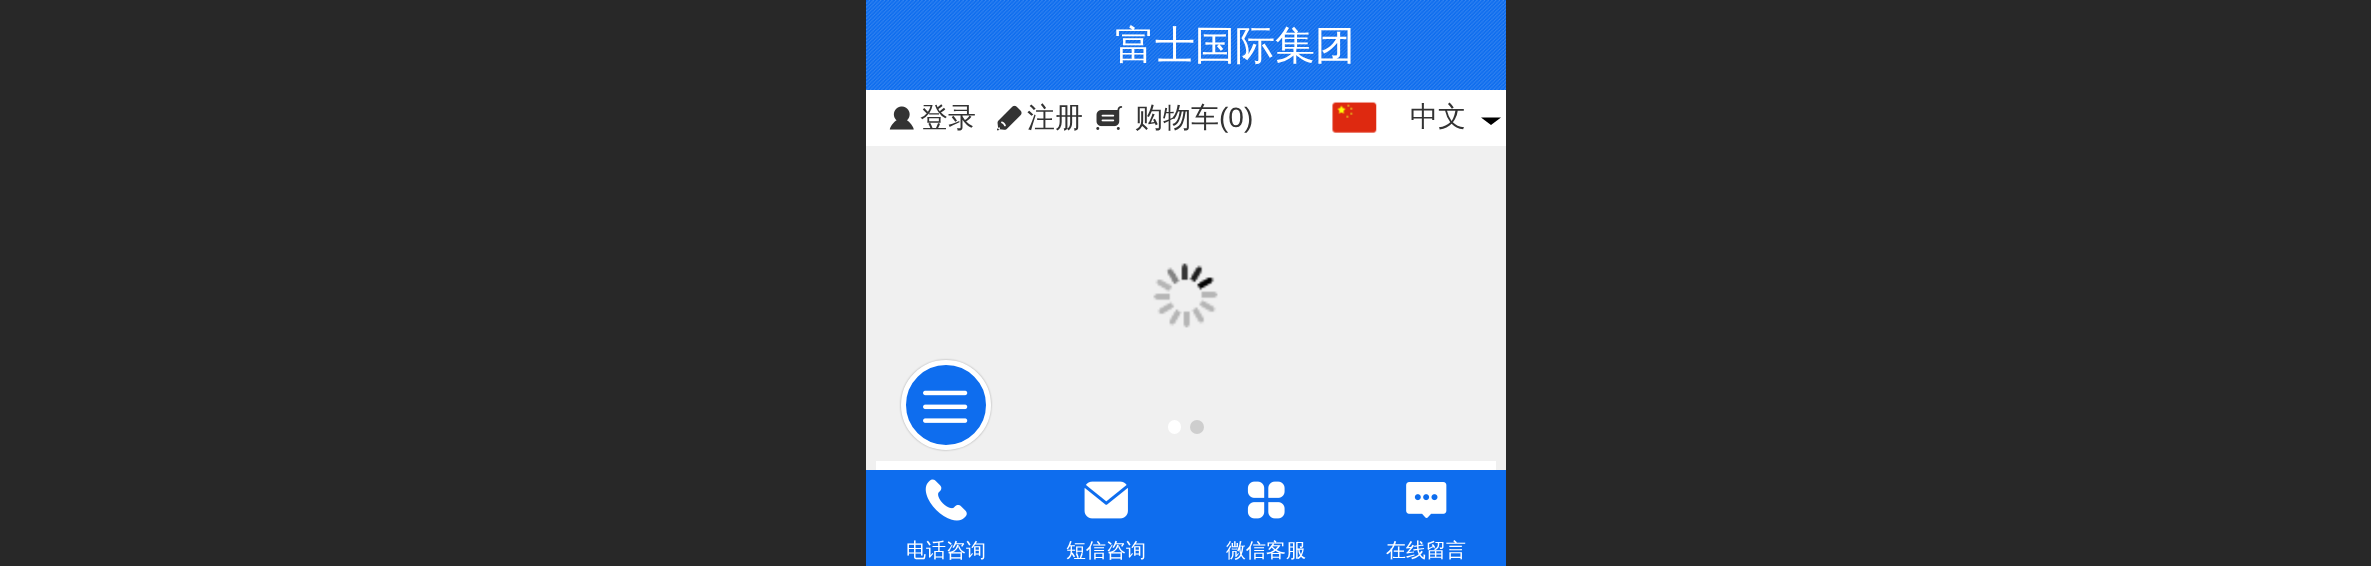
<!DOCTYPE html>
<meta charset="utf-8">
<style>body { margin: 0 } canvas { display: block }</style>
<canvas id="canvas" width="2371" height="566"></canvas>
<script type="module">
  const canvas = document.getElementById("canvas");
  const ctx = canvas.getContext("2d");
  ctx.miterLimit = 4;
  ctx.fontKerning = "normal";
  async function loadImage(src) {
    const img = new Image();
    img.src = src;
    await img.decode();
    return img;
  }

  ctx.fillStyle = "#f0f0f0";
  ctx.fillRect(0, 0, 2371, 566);
  ctx.fillStyle = "#282828";
  ctx.fillRect(0, 0, 866, 566);
  ctx.fillStyle = "#0e6dee";
  ctx.fillRect(866, 0, 640, 90);
  ctx.drawImage(await loadImage("img1.png"), 866, 0, 640, 90);
  ctx.font = "500 40px WenQuanYi Zen Hei";
  ctx.fillStyle = "#ffffff";
  ctx.fillText("富士国际集团", 1115, 59);
  ctx.fillRect(866, 90, 640, 56);
  ctx.drawImage(await loadImage("img2.png"), 889, 106, 25, 24);
  ctx.font = "500 28px WenQuanYi Zen Hei";
  ctx.fillStyle = "#333333";
  ctx.fillText("登录", 920, 127);
  ctx.drawImage(await loadImage("img3.png"), 997, 105, 25, 26);
  ctx.fillText("注册", 1027, 127);
  ctx.drawImage(await loadImage("img4.png"), 1096, 106, 27, 24);
  ctx.fillText("购物车", 1135, 127);
  ctx.font = "28px Liberation Sans";
  ctx.fillText("(0)", 1219, 127);
  ctx.drawImage(await loadImage("img5.png"), 1332, 101, 45, 32);
  ctx.font = "500 28px WenQuanYi Zen Hei";
  ctx.fillText("中文", 1410, 126);
  ctx.fillStyle = "#000000";
  ctx.beginPath();
  ctx.moveTo(1481, 117.5);
  ctx.lineTo(1501, 117.5);
  ctx.lineTo(1491, 125);
  ctx.closePath();
  ctx.fill();
  ctx.fillStyle = "rgba(0, 0, 0, 0.3)";
  ctx.filter = "blur(1px)";
  ctx.beginPath();
  ctx.roundRect(901, 360, 90, 90, 45);
  ctx.fill();
  ctx.filter = "none";
  ctx.fillStyle = "#0e6dee";
  ctx.beginPath();
  ctx.arc(946, 405, 42.5, 0, Math.PI * 2);
  ctx.fill();
  ctx.strokeStyle = "#ffffff";
  ctx.lineWidth = 5;
  ctx.stroke();
  ctx.drawImage(await loadImage("img6.png"), 923, 390, 45, 33);
  ctx.drawImage(await loadImage("img7.png"), 1153, 263, 65, 65);
  ctx.fillStyle = "#ffffff";
  ctx.beginPath();
  ctx.roundRect(1168, 420, 13, 14, 6.5);
  ctx.fill();
  ctx.fillStyle = "#cecece";
  ctx.beginPath();
  ctx.arc(1197, 427, 7, 0, Math.PI * 2);
  ctx.fill();
  ctx.fillStyle = "#ffffff";
  ctx.fillRect(876, 461, 620, 9);
  ctx.fillStyle = "#0e6dee";
  ctx.fillRect(866, 470, 640, 96);
  ctx.drawImage(await loadImage("img8.png"), 925, 479, 42, 42);
  ctx.font = "500 20px WenQuanYi Zen Hei";
  ctx.fillStyle = "#ffffff";
  ctx.fillText("电话咨询", 906, 557);
  ctx.drawImage(await loadImage("img9.png"), 1084, 481, 44, 38);
  ctx.fillText("短信咨询", 1066, 557);
  ctx.drawImage(await loadImage("img10.png"), 1247, 481, 38, 38);
  ctx.fillText("微信客服", 1226, 557);
  ctx.drawImage(await loadImage("img11.png"), 1406, 482, 41, 36);
  ctx.fillText("在线留言", 1386, 557);
  ctx.fillStyle = "#282828";
  ctx.fillRect(1506, 0, 865, 566);
</script>
